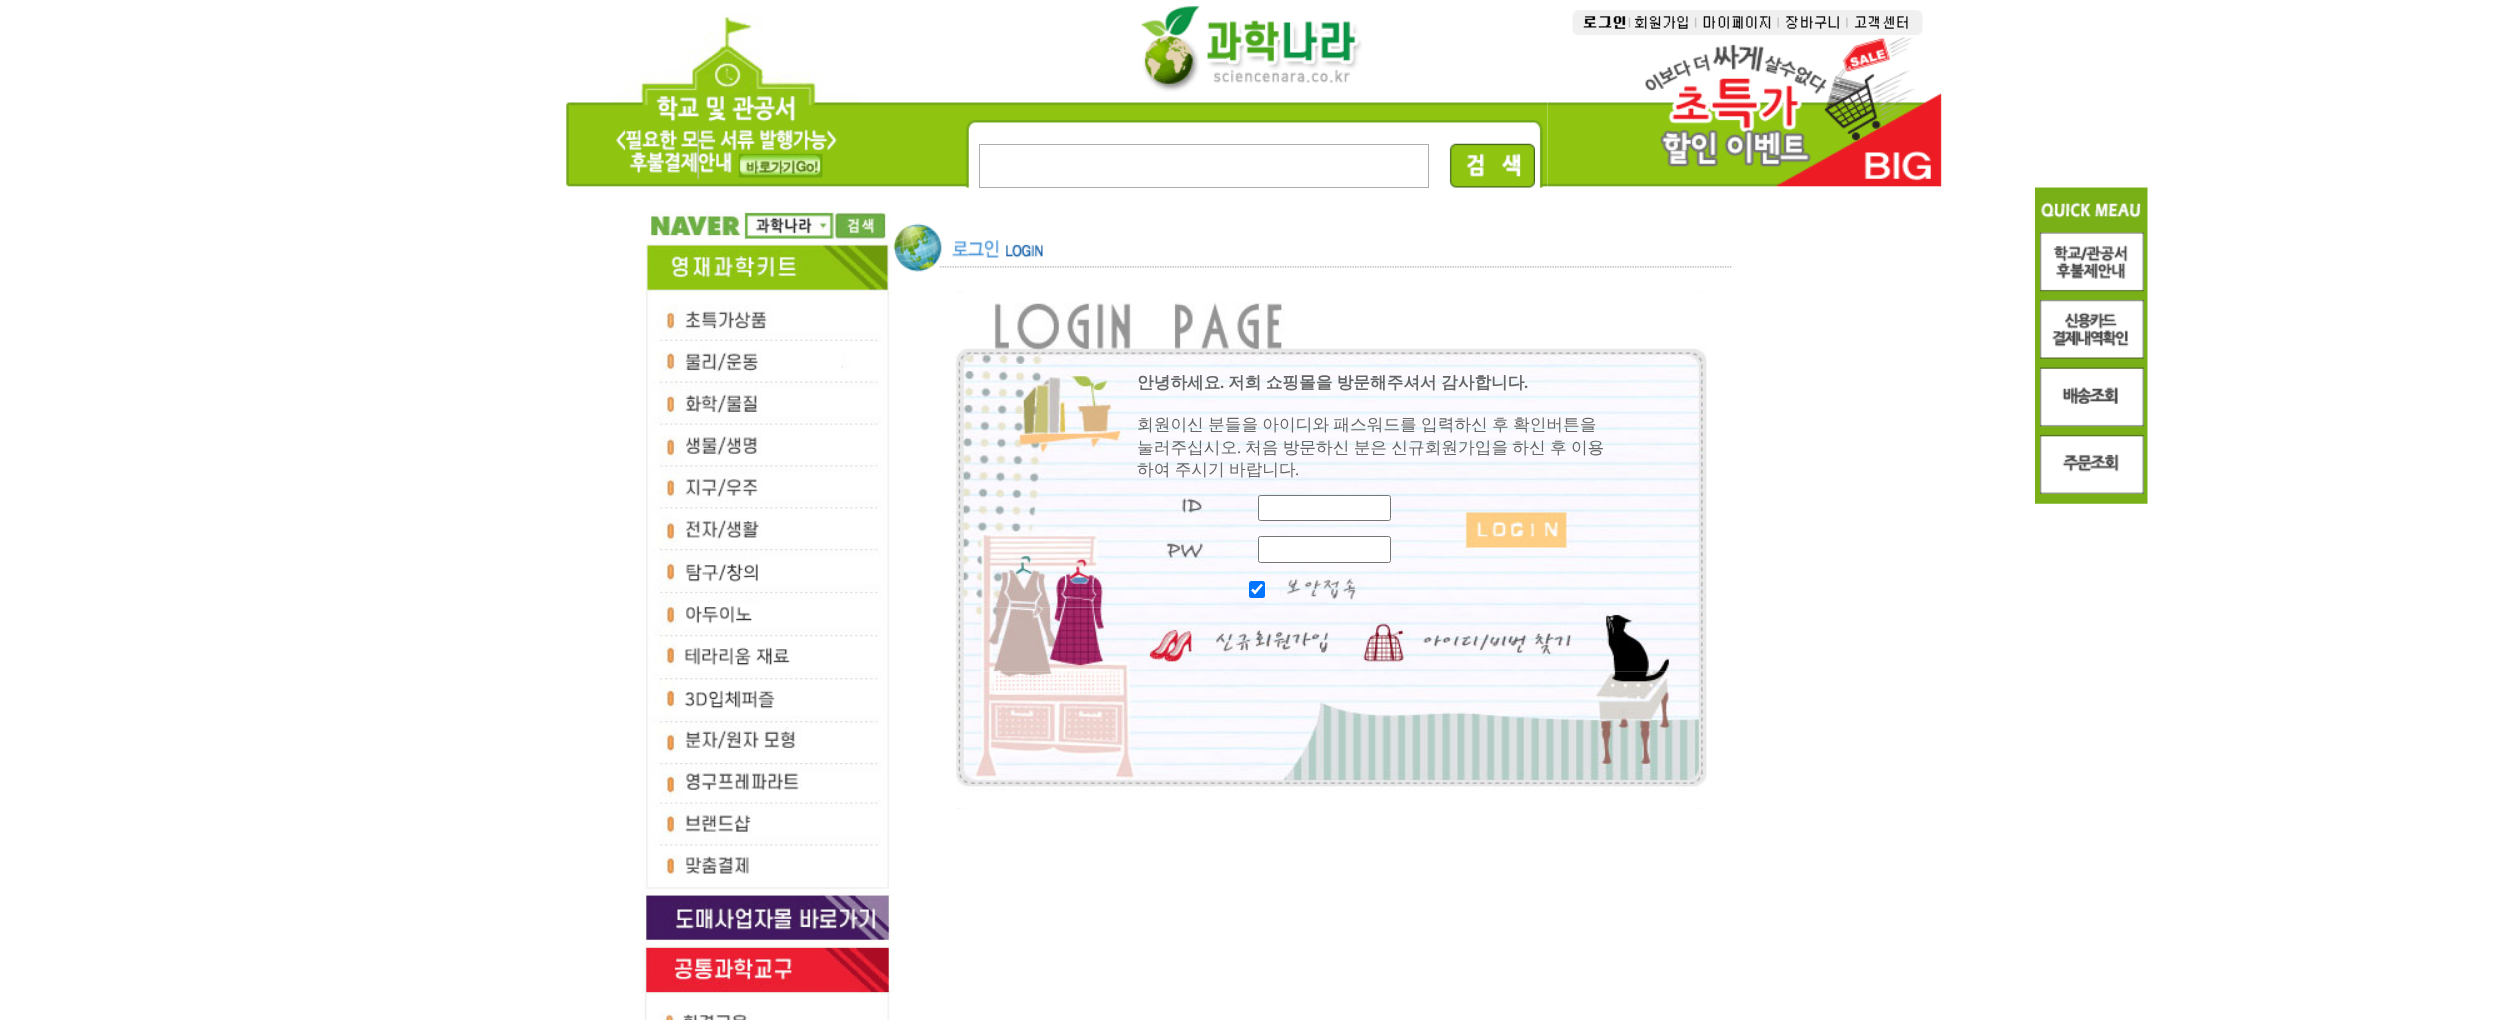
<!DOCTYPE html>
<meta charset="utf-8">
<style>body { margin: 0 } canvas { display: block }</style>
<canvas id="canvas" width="2507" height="1020"></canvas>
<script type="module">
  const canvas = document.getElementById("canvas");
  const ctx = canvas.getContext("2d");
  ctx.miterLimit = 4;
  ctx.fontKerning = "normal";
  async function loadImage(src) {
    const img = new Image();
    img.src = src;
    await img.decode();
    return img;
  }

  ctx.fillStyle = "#ffffff";
  ctx.fillRect(0, 0, 2507, 1020);
  ctx.drawImage(await loadImage("img1.png"), 566, 13, 394, 174);
  ctx.drawImage(await loadImage("img2.png"), 1140, 5, 222, 87);
  ctx.drawImage(await loadImage("img3.png"), 1572, 10, 351, 25);
  ctx.drawImage(await loadImage("img5.png"), 960, 102, 588, 86);
  ctx.drawImage(await loadImage("img4.png"), 1547, 37, 395, 150);
  ctx.strokeStyle = "#adadad";
  ctx.strokeRect(979.5, 144.5, 449, 43);
  ctx.drawImage(await loadImage("img6.png"), 1449, 143, 86, 45);
  ctx.drawImage(await loadImage("img7.png"), 641, 211, 251, 809);
  ctx.drawImage(await loadImage("img8.png"), 893, 223, 839, 49);
  ctx.drawImage(await loadImage("img9.png"), 955, 292, 752, 517);
  ctx.drawImage(await loadImage("img10.png"), 955, 292, 752, 195);
  ctx.drawImage(await loadImage("img11.png"), 964, 292, 741, 80);
  ctx.drawImage(await loadImage("img12.png"), 955, 371, 182, 115);
  ctx.drawImage(await loadImage("img13.png"), 1137, 374, 546, 108);
  ctx.font = "bold 16.7px WenQuanYi Zen Hei";
  ctx.fillStyle = "#666666";
  ctx.fillText("안녕하세요", 1137, 388);
  ctx.font = "bold 16.7px Liberation Serif";
  ctx.fillText(".", 1220, 388);
  ctx.wordSpacing = "-0.75px";
  ctx.font = "bold 16.7px WenQuanYi Zen Hei";
  ctx.fillText("저희 쇼핑몰을 방문해주셔서 감사합니다", 1228, 388);
  ctx.wordSpacing = "0px";
  ctx.font = "bold 16.7px Liberation Serif";
  ctx.fillText(".", 1524, 388);
  ctx.wordSpacing = "-0.75px";
  ctx.font = "500 16.7px WenQuanYi Zen Hei";
  ctx.fillText("회원이신 분들을 아이디와 패스워드를 입력하신 후 확인버튼을", 1137, 430);
  ctx.wordSpacing = "0px";
  ctx.fillText("눌러주십시오", 1137, 453);
  ctx.font = "16.7px Liberation Serif";
  ctx.fillText(".", 1237, 453);
  ctx.wordSpacing = "-0.75px";
  ctx.font = "500 16.7px WenQuanYi Zen Hei";
  ctx.fillText("처음 방문하신 분은 신규회원가입을 하신 후 이용", 1245, 453);
  ctx.fillText("하여 주시기 바랍니다", 1137, 475);
  ctx.wordSpacing = "0px";
  ctx.font = "16.7px Liberation Serif";
  ctx.fillText(".", 1295, 475);
  ctx.drawImage(await loadImage("img14.png"), 1683, 371, 22, 116);
  ctx.drawImage(await loadImage("img15.png"), 955, 486, 261, 84);
  ctx.drawImage(await loadImage("img16.png"), 1216, 487, 218, 42);
  ctx.fillStyle = "#ffffff";
  ctx.beginPath();
  ctx.roundRect(1258.5, 495.5, 132, 25, 2);
  ctx.fill();
  ctx.strokeStyle = "#767676";
  ctx.stroke();
  ctx.drawImage(await loadImage("img17.png"), 1434, 487, 155, 80);
  ctx.drawImage(await loadImage("img18.png"), 1589, 486, 116, 84);
  ctx.drawImage(await loadImage("img19.png"), 1216, 529, 218, 38);
  ctx.beginPath();
  ctx.roundRect(1258.5, 536.5, 132, 26, 2);
  ctx.fill();
  ctx.stroke();
  ctx.drawImage(await loadImage("img20.png"), 955, 570, 750, 38);
  ctx.fillStyle = "#0075ff";
  ctx.beginPath();
  ctx.roundRect(1249, 581, 16, 17, 2.5);
  ctx.fill();
  ctx.beginPath();
  ctx.moveTo(1252, 589.5);
  ctx.lineTo(1255, 592.5);
  ctx.lineTo(1262, 584.5);
  ctx.strokeStyle = "#ffffff";
  ctx.lineWidth = 2.6;
  ctx.stroke();
  ctx.drawImage(await loadImage("img21.png"), 1275, 570, 180, 38);
  ctx.drawImage(await loadImage("img22.png"), 955, 607, 184, 65);
  ctx.drawImage(await loadImage("img23.png"), 1139, 607, 201, 65);
  ctx.drawImage(await loadImage("img24.png"), 1340, 607, 249, 65);
  ctx.drawImage(await loadImage("img25.png"), 1589, 607, 117, 65);
  ctx.drawImage(await loadImage("img26.png"), 955, 671, 752, 138);
  ctx.drawImage(await loadImage("img27.png"), 2035, 187, 113, 317);
</script>
